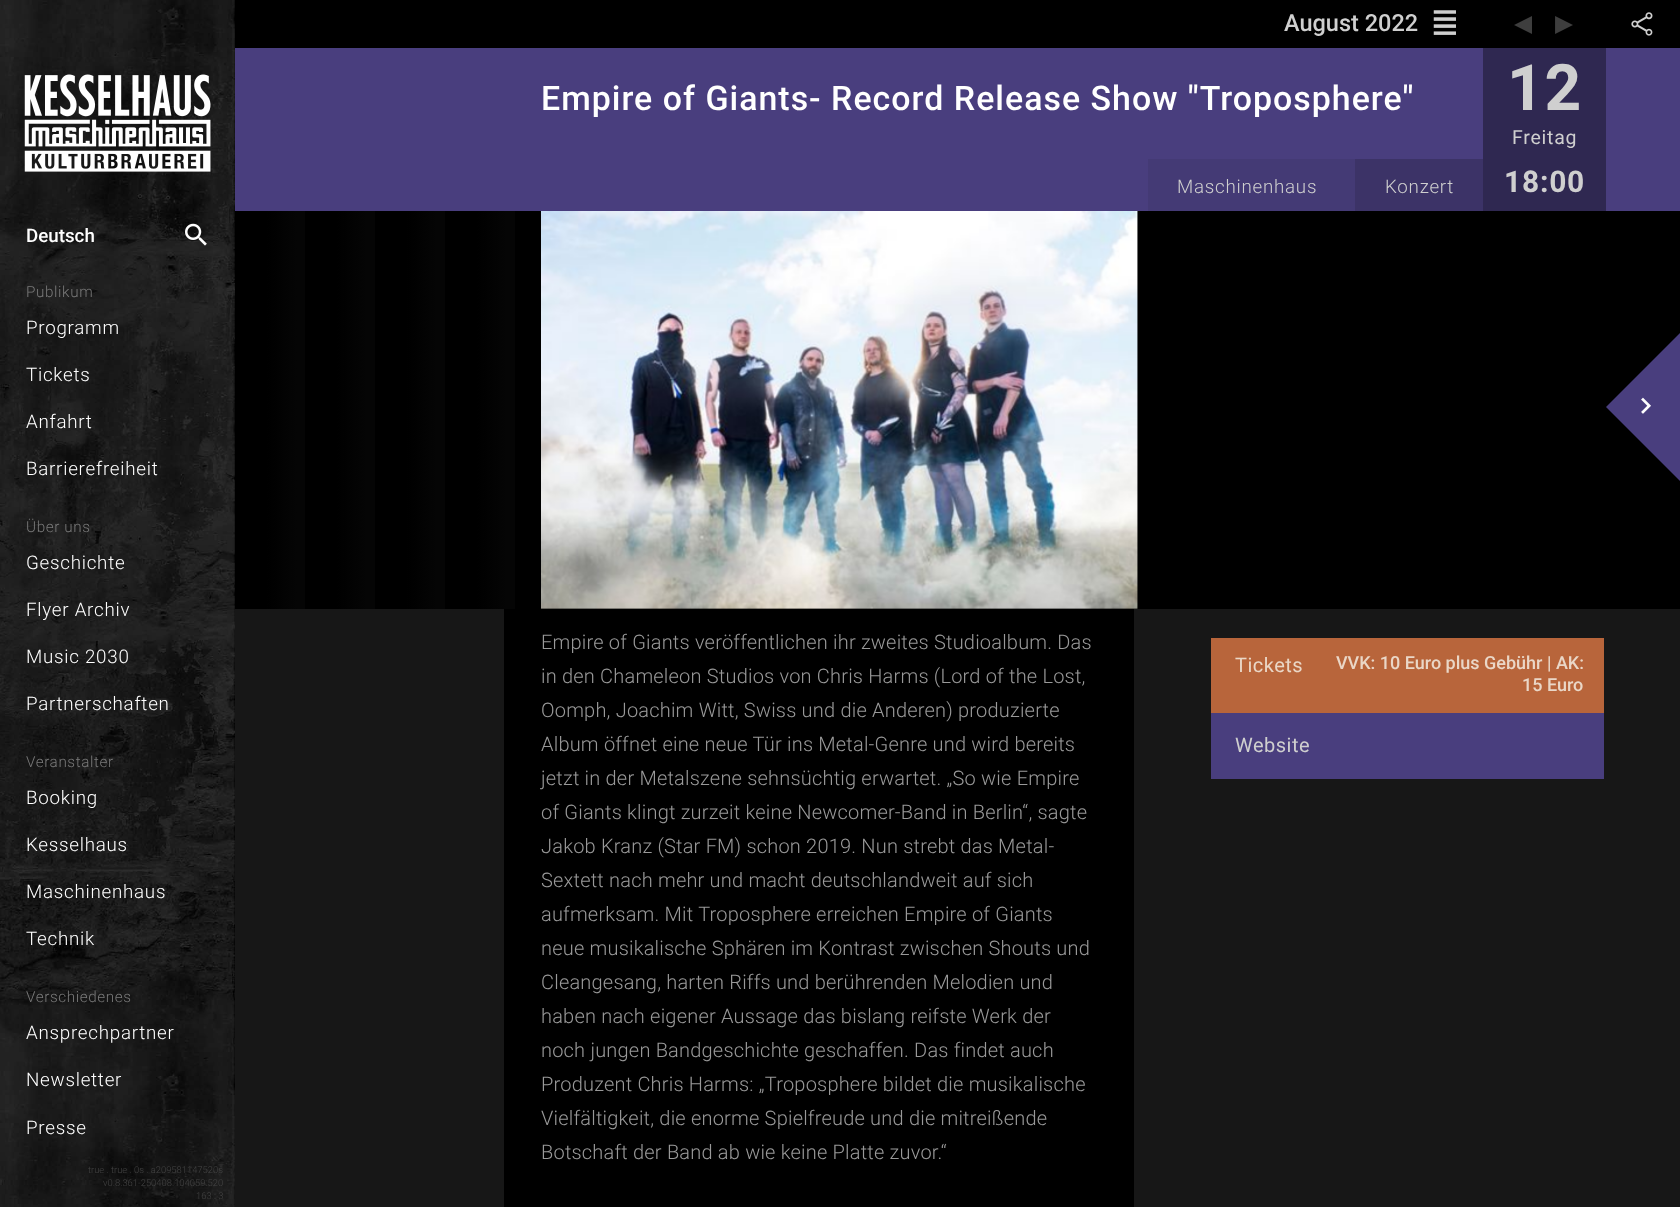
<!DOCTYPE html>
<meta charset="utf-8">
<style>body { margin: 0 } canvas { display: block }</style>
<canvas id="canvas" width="1680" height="1207"></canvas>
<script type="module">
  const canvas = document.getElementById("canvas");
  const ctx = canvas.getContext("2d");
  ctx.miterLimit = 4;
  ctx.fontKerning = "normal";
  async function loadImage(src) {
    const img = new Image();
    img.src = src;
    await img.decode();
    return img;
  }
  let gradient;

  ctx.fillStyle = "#171717";
  ctx.fillRect(0, 0, 1680, 1207);
  ctx.drawImage(await loadImage("img1.png"), 0, 0, 235, 1207);
  ctx.drawImage(await loadImage("img2.png"), 24, 74, 187, 98);
  ctx.font = "500 18.75px Roboto";
  ctx.fillStyle = "#ffffff";
  ctx.fillText("Deutsch", 26, 242);
  ctx.drawImage(await loadImage("img3.png"), 185, 223, 22, 23);
  ctx.letterSpacing = "0.6px";
  ctx.font = "300 15.25px Roboto";
  ctx.fillStyle = "#797979";
  ctx.fillText("Publikum", 26, 297);
  ctx.letterSpacing = "0.75px";
  ctx.font = "300 18.75px Roboto";
  ctx.fillStyle = "#ffffff";
  ctx.fillText("Programm", 26, 334);
  ctx.fillText("Tickets", 26, 381);
  ctx.fillText("Anfahrt", 26, 428);
  ctx.fillText("Barrierefreiheit", 26, 475);
  ctx.letterSpacing = "0.6px";
  ctx.font = "300 15.25px Roboto";
  ctx.fillStyle = "#797979";
  ctx.fillText("Über uns", 26, 532);
  ctx.letterSpacing = "0.75px";
  ctx.font = "300 18.75px Roboto";
  ctx.fillStyle = "#ffffff";
  ctx.fillText("Geschichte", 26, 569);
  ctx.fillText("Flyer Archiv", 26, 616);
  ctx.fillText("Music 2030", 26, 663);
  ctx.fillText("Partnerschaften", 26, 710);
  ctx.letterSpacing = "0.6px";
  ctx.font = "300 15.25px Roboto";
  ctx.fillStyle = "#797979";
  ctx.fillText("Veranstalter", 26, 767);
  ctx.letterSpacing = "0.75px";
  ctx.font = "300 18.75px Roboto";
  ctx.fillStyle = "#ffffff";
  ctx.fillText("Booking", 26, 804);
  ctx.fillText("Kesselhaus", 26, 851);
  ctx.fillText("Maschinenhaus", 26, 898);
  ctx.fillText("Technik", 26, 945);
  ctx.letterSpacing = "0.6px";
  ctx.font = "300 15.25px Roboto";
  ctx.fillStyle = "#797979";
  ctx.fillText("Verschiedenes", 26, 1002);
  ctx.letterSpacing = "0.75px";
  ctx.font = "300 18.75px Roboto";
  ctx.fillStyle = "#ffffff";
  ctx.fillText("Ansprechpartner", 26, 1039);
  ctx.fillText("Newsletter", 26, 1086);
  ctx.fillText("Presse", 26, 1134);
  ctx.letterSpacing = "0px";
  ctx.font = "300 9.4px Roboto";
  ctx.fillStyle = "#444444";
  ctx.fillText("true . true . 0s . a209581147520s", 88, 1173);
  ctx.fillText("v0.8.361-250408.104059.520", 103, 1186);
  ctx.fillText("163 : 3", 196, 1199);
  ctx.fillStyle = "#000000";
  ctx.fillRect(235, 0, 1445, 48);
  ctx.font = "500 23.5px Roboto";
  ctx.fillStyle = "#cfcfcf";
  ctx.fillText("August 2022", 1284, 31);
  ctx.drawImage(await loadImage("img4.png"), 1433, 10, 23, 25);
  ctx.font = "23.5px DejaVu Sans";
  ctx.fillStyle = "#3e3e3e";
  ctx.fillText("◀︎", 1514, 31);
  ctx.fillText("▶︎", 1555, 31);
  ctx.drawImage(await loadImage("img5.png"), 1631, 12, 22, 24);
  ctx.fillStyle = "#493e7e";
  ctx.fillRect(235, 48, 1445, 163);
  ctx.letterSpacing = "1.02px";
  ctx.font = "500 33.9px Roboto";
  ctx.fillStyle = "#ffffff";
  ctx.fillText("Empire of Giants- Record Release Show \"Troposphere\"", 541, 110);
  ctx.fillStyle = "#2f2851";
  ctx.fillRect(1483, 48, 123, 163);
  ctx.letterSpacing = "0.75px";
  ctx.font = "bold 64px Roboto";
  ctx.fillStyle = "#cfcfcf";
  ctx.fillText("12", 1507, 110);
  ctx.font = "19.5px Roboto";
  ctx.fillText("Freitag", 1512, 144);
  ctx.font = "bold 30px Roboto";
  ctx.fillText("18:00", 1504, 192);
  ctx.fillStyle = "#443a75";
  ctx.fillRect(1148, 159, 207, 52);
  ctx.font = "300 18.75px Roboto";
  ctx.fillStyle = "#cfcfcf";
  ctx.fillText("Maschinenhaus", 1177, 193);
  ctx.fillStyle = "#3c3367";
  ctx.fillRect(1355, 159, 128, 52);
  ctx.fillStyle = "#cfcfcf";
  ctx.fillText("Konzert", 1385, 193);
  gradient = ctx.createLinearGradient(305, 246, 235, 246);
  gradient.addColorStop(0.12, "#050505");
  gradient.addColorStop(0.55, "#000000");
  ctx.fillStyle = gradient;
  ctx.fillRect(235, 211, 70, 398);
  gradient = ctx.createLinearGradient(375, 246, 305, 246);
  gradient.addColorStop(0.12, "#050505");
  gradient.addColorStop(0.55, "#000000");
  ctx.fillStyle = gradient;
  ctx.fillRect(305, 211, 70, 398);
  gradient = ctx.createLinearGradient(445, 246, 375, 246);
  gradient.addColorStop(0.12, "#050505");
  gradient.addColorStop(0.55, "#000000");
  ctx.fillStyle = gradient;
  ctx.fillRect(375, 211, 70, 398);
  gradient = ctx.createLinearGradient(515, 246, 445, 246);
  gradient.addColorStop(0.12, "#050505");
  gradient.addColorStop(0.55, "#000000");
  ctx.fillStyle = gradient;
  ctx.fillRect(445, 211, 70, 398);
  gradient = ctx.createLinearGradient(585, 246, 515, 246);
  gradient.addColorStop(0.12, "#050505");
  gradient.addColorStop(0.55, "#000000");
  ctx.fillStyle = gradient;
  ctx.fillRect(515, 211, 26, 398);
  ctx.fillStyle = "#000000";
  ctx.fillRect(541, 211, 1139, 398);
  ctx.drawImage(await loadImage("img6.png"), 541, 211, 597, 398);
  ctx.fillStyle = "#493e7e";
  ctx.beginPath();
  ctx.moveTo(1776, 237);
  ctx.lineTo(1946, 407);
  ctx.lineTo(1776, 577);
  ctx.lineTo(1606, 407);
  ctx.closePath();
  ctx.fill();
  ctx.drawImage(await loadImage("img7.png"), 1641, 397, 10, 17);
  ctx.fillStyle = "#000000";
  ctx.fillRect(504, 609, 630, 598);
  ctx.letterSpacing = "0.2px";
  ctx.font = "300 20px Roboto";
  ctx.fillStyle = "#999999";
  ctx.fillText("Empire of Giants veröffentlichen ihr zweites Studioalbum. Das", 541, 649);
  ctx.fillText("in den Chameleon Studios von Chris Harms (Lord of the Lost,", 541, 683);
  ctx.fillText("Oomph, Joachim Witt, Swiss und die Anderen) produzierte", 541, 717);
  ctx.fillText("Album öffnet eine neue Tür ins Metal-Genre und wird bereits", 541, 751);
  ctx.fillText("jetzt in der Metalszene sehnsüchtig erwartet. „So wie Empire", 541, 785);
  ctx.fillText("of Giants klingt zurzeit keine Newcomer-Band in Berlin“, sagte", 541, 819);
  ctx.fillText("Jakob Kranz (Star FM) schon 2019. Nun strebt das Metal-", 541, 853);
  ctx.fillText("Sextett nach mehr und macht deutschlandweit auf sich", 541, 887);
  ctx.fillText("aufmerksam. Mit Troposphere erreichen Empire of Giants", 541, 921);
  ctx.fillText("neue musikalische Sphären im Kontrast zwischen Shouts und", 541, 955);
  ctx.fillText("Cleangesang, harten Riffs und berührenden Melodien und", 541, 989);
  ctx.fillText("haben nach eigener Aussage das bislang reifste Werk der", 541, 1023);
  ctx.fillText("noch jungen Bandgeschichte geschaffen. Das findet auch", 541, 1057);
  ctx.fillText("Produzent Chris Harms: „Troposphere bildet die musikalische", 541, 1091);
  ctx.fillText("Vielfältigkeit, die enorme Spielfreude und die mitreißende", 541, 1125);
  ctx.fillText("Botschaft der Band ab wie keine Platte zuvor.“", 541, 1159);
  ctx.fillStyle = "#b8653b";
  ctx.fillRect(1211, 638, 393, 75);
  ctx.letterSpacing = "0.5px";
  ctx.font = "20px Roboto";
  ctx.fillStyle = "#ead7c7";
  ctx.fillText("Tickets", 1235, 672);
  ctx.letterSpacing = "0px";
  ctx.font = "500 18px Roboto";
  ctx.fillText("VVK: 10 Euro plus Gebühr | AK:", 1336, 669);
  ctx.fillText("15 Euro", 1522, 691);
  ctx.fillStyle = "#493e7e";
  ctx.fillRect(1211, 713, 393, 66);
  ctx.letterSpacing = "0.5px";
  ctx.font = "20px Roboto";
  ctx.fillStyle = "#cfcfcf";
  ctx.fillText("Website", 1235, 752);
</script>
